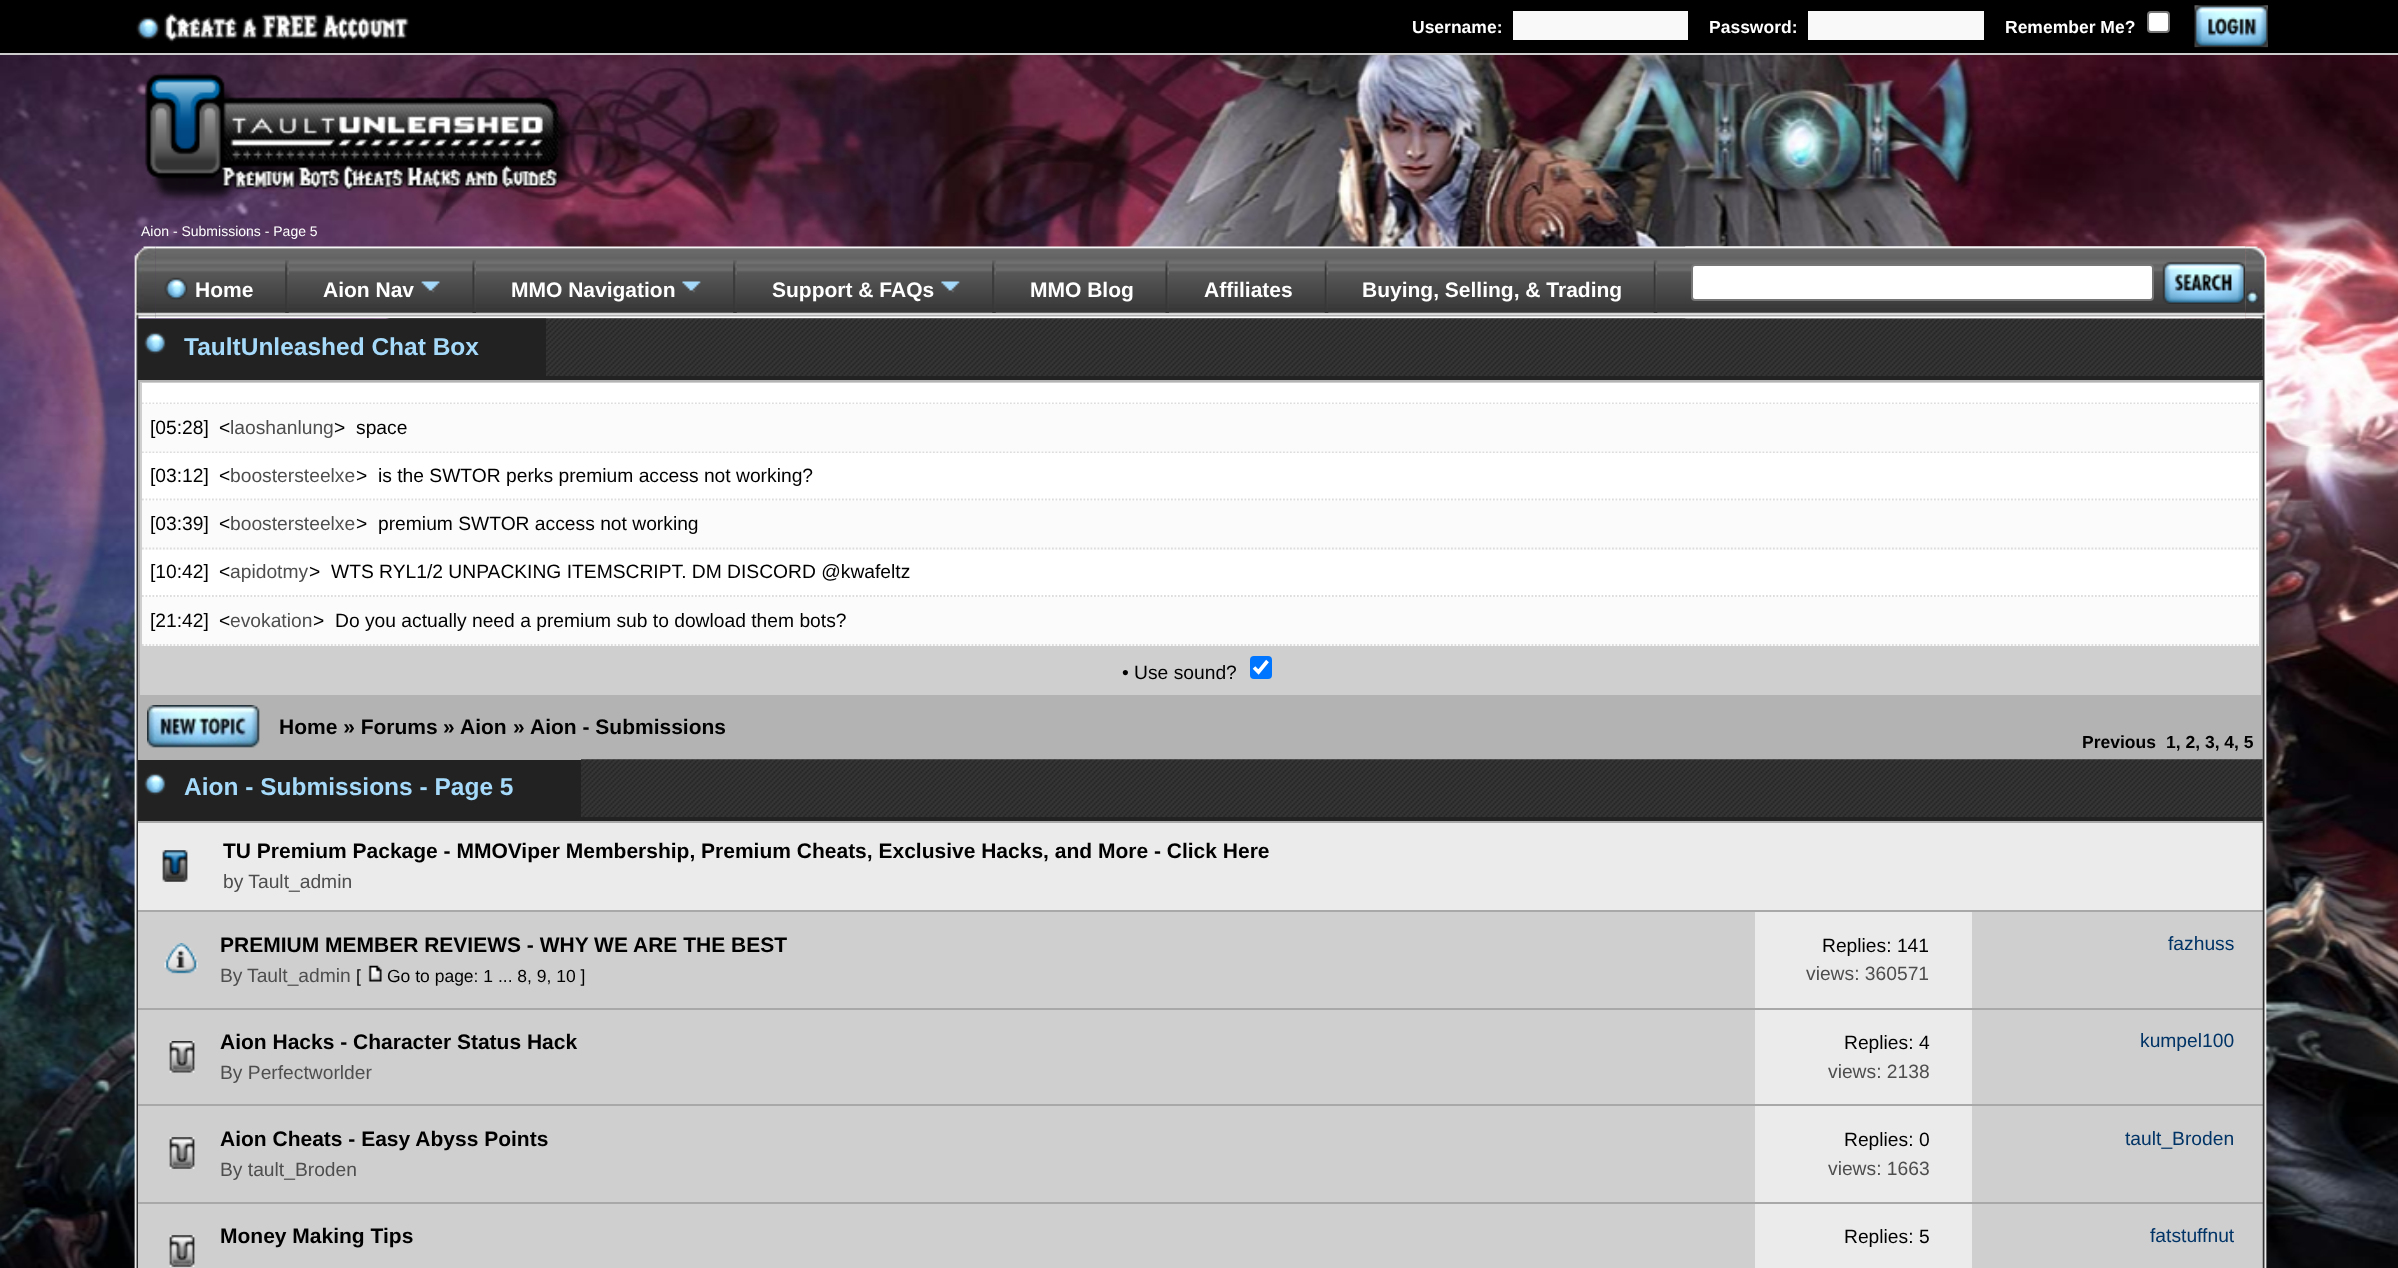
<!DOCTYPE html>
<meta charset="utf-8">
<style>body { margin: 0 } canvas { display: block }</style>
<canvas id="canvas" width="2398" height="1268"></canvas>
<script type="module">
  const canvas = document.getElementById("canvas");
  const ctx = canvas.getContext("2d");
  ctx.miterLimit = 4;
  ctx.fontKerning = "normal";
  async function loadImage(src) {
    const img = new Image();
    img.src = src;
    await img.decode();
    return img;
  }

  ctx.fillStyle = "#ffffff";
  ctx.fillRect(0, 0, 2398, 1268);
  ctx.drawImage(await loadImage("img1.png"), 0, 55, 2398, 1213);
  ctx.fillStyle = "#000000";
  ctx.fillRect(0, 0, 2398, 53);
  ctx.fillStyle = "#cccccc";
  ctx.fillRect(0, 53, 2398, 2);
  ctx.drawImage(await loadImage("img2.png"), 136, 12, 274, 31);
  ctx.font = "bold 17.5px Liberation Sans";
  ctx.fillStyle = "#ffffff";
  ctx.fillText("Username:", 1412, 33);
  ctx.fillStyle = "#f9f9f9";
  ctx.fillRect(1513, 11, 175, 29);
  ctx.fillStyle = "#ffffff";
  ctx.fillText("Password:", 1709, 33);
  ctx.fillStyle = "#f9f9f9";
  ctx.fillRect(1808, 11, 176, 29);
  ctx.fillStyle = "#ffffff";
  ctx.fillText("Remember Me?", 2005, 33);
  ctx.beginPath();
  ctx.roundRect(2148, 12, 21, 20, 3);
  ctx.fill();
  ctx.strokeStyle = "#767676";
  ctx.lineWidth = 2;
  ctx.stroke();
  ctx.drawImage(await loadImage("img3.png"), 2194, 5, 74, 43);
  ctx.drawImage(await loadImage("img4.png"), 144, 73, 430, 128);
  ctx.font = "14px Liberation Sans";
  ctx.fillText("Aion - Submissions - Page 5", 141, 236);
  ctx.drawImage(await loadImage("img16.png"), 134, 318, 5, 950);
  ctx.fillStyle = "#b3b3b3";
  ctx.fillRect(138, 319, 2125, 498);
  ctx.drawImage(await loadImage("img18.png"), 546, 318, 1717, 58);
  ctx.drawImage(await loadImage("img6.png"), 155, 246, 2091, 73);
  ctx.drawImage(await loadImage("img5.png"), 134, 246, 22, 73);
  ctx.drawImage(await loadImage("img7.png"), 285, 260, 4, 53);
  ctx.drawImage(await loadImage("img8.png"), 164, 277, 24, 23);
  ctx.font = "bold 21px Liberation Sans";
  ctx.fillStyle = "#ffffff";
  ctx.fillText("Home", 195, 297);
  ctx.drawImage(await loadImage("img9.png"), 472, 260, 4, 53);
  ctx.drawImage(await loadImage("img10.png"), 421, 281, 19, 12);
  ctx.fillText("Aion Nav", 323, 297);
  ctx.drawImage(await loadImage("img7.png"), 733, 260, 4, 53);
  ctx.drawImage(await loadImage("img11.png"), 682, 281, 19, 12);
  ctx.fillText("MMO Navigation", 511, 297);
  ctx.drawImage(await loadImage("img7.png"), 992, 260, 4, 53);
  ctx.drawImage(await loadImage("img11.png"), 941, 281, 19, 12);
  ctx.fillText("Support & FAQs", 772, 297);
  ctx.drawImage(await loadImage("img9.png"), 1165, 260, 4, 53);
  ctx.fillText("MMO Blog", 1030, 297);
  ctx.drawImage(await loadImage("img12.png"), 1324, 260, 5, 53);
  ctx.fillText("Affiliates", 1204, 297);
  ctx.drawImage(await loadImage("img12.png"), 1653, 260, 5, 53);
  ctx.fillText("Buying, Selling, & Trading", 1362, 297);
  ctx.drawImage(await loadImage("img13.png"), 1685, 246, 561, 73);
  ctx.beginPath();
  ctx.roundRect(1692, 265, 461, 35, 3);
  ctx.fill();
  ctx.stroke();
  ctx.fillStyle = "#222222";
  ctx.fillRect(138, 376, 2125, 4);
  ctx.fillRect(138, 817, 2125, 4);
  ctx.drawImage(await loadImage("img20.png"), 581, 759, 1682, 58);
  ctx.fillStyle = "#cfcfcf";
  ctx.fillRect(138, 912, 2125, 356);
  ctx.fillStyle = "#a8a8a8";
  ctx.fillRect(138, 821, 2125, 2);
  ctx.fillStyle = "#ebebeb";
  ctx.fillRect(138, 823, 2125, 87);
  ctx.fillStyle = "#a8a8a8";
  ctx.fillRect(138, 910, 2125, 2);
  ctx.fillRect(138, 1008, 2125, 2);
  ctx.fillRect(138, 1104, 2125, 2);
  ctx.fillRect(138, 1202, 2125, 2);
  ctx.drawImage(await loadImage("img26.png"), 2262, 318, 5, 950);
  ctx.drawImage(await loadImage("img15.png"), 2245, 246, 22, 73);
  ctx.drawImage(await loadImage("img14.png"), 2162, 261, 84, 43);
  ctx.fillStyle = "#222222";
  ctx.fillRect(138, 319, 408, 57);
  ctx.drawImage(await loadImage("img17.png"), 144, 332, 22, 22);
  ctx.font = "bold 24.5px Liberation Sans";
  ctx.fillStyle = "#a5dafa";
  ctx.fillText("TaultUnleashed Chat Box", 184, 355);
  ctx.fillStyle = "#cfcfcf";
  ctx.fillRect(140, 382, 2121, 313);
  ctx.fillStyle = "#ffffff";
  ctx.fillRect(142, 383, 2117, 21);
  ctx.beginPath();
  ctx.moveTo(142, 403.5);
  ctx.lineTo(2259, 403.5);
  ctx.strokeStyle = "#dddddd";
  ctx.lineWidth = 1.8;
  ctx.setLineDash([1.75, 1.75]);
  ctx.stroke();
  ctx.fillStyle = "#fbfbfb";
  ctx.fillRect(142, 404, 2117, 49);
  ctx.beginPath();
  ctx.moveTo(142, 452.5);
  ctx.lineTo(2259, 452.5);
  ctx.stroke();
  ctx.font = "19.25px Liberation Sans";
  ctx.fillStyle = "#000000";
  ctx.fillText("[05:28]", 150, 434);
  ctx.fillText("<", 219, 434);
  ctx.fillStyle = "#4e4e4e";
  ctx.fillText("laoshanlung", 230, 434);
  ctx.fillStyle = "#000000";
  ctx.fillText(">", 334, 434);
  ctx.fillText("space", 356, 434);
  ctx.fillStyle = "#ffffff";
  ctx.fillRect(142, 453, 2117, 48);
  ctx.beginPath();
  ctx.moveTo(142, 499.5);
  ctx.lineTo(2259, 499.5);
  ctx.stroke();
  ctx.fillStyle = "#000000";
  ctx.fillText("[03:12]", 150, 482);
  ctx.fillText("<", 219, 482);
  ctx.fillStyle = "#4e4e4e";
  ctx.fillText("boostersteelxe", 230, 482);
  ctx.fillStyle = "#000000";
  ctx.fillText(">", 356, 482);
  ctx.fillText("is the SWTOR perks premium access not working?", 378, 482);
  ctx.fillStyle = "#fbfbfb";
  ctx.fillRect(142, 501, 2117, 49);
  ctx.beginPath();
  ctx.moveTo(142, 548.5);
  ctx.lineTo(2259, 548.5);
  ctx.stroke();
  ctx.fillStyle = "#000000";
  ctx.fillText("[03:39]", 150, 530);
  ctx.fillText("<", 219, 530);
  ctx.fillStyle = "#4e4e4e";
  ctx.fillText("boostersteelxe", 230, 530);
  ctx.fillStyle = "#000000";
  ctx.fillText(">", 356, 530);
  ctx.fillText("premium SWTOR access not working", 378, 530);
  ctx.fillStyle = "#ffffff";
  ctx.fillRect(142, 550, 2117, 47);
  ctx.beginPath();
  ctx.moveTo(142, 596);
  ctx.lineTo(2259, 596);
  ctx.stroke();
  ctx.fillStyle = "#000000";
  ctx.fillText("[10:42]", 150, 578);
  ctx.fillText("<", 219, 578);
  ctx.fillStyle = "#4e4e4e";
  ctx.fillText("apidotmy", 230, 578);
  ctx.fillStyle = "#000000";
  ctx.fillText(">", 309, 578);
  ctx.fillText("WTS RYL1/2 UNPACKING ITEMSCRIPT. DM DISCORD @kwafeltz", 331, 578);
  ctx.fillStyle = "#fbfbfb";
  ctx.fillRect(142, 597, 2117, 49);
  ctx.beginPath();
  ctx.moveTo(142, 645);
  ctx.lineTo(2259, 645);
  ctx.stroke();
  ctx.fillStyle = "#000000";
  ctx.fillText("[21:42]", 150, 627);
  ctx.fillText("<", 219, 627);
  ctx.fillStyle = "#4e4e4e";
  ctx.fillText("evokation", 230, 627);
  ctx.fillStyle = "#000000";
  ctx.fillText(">", 313, 627);
  ctx.fillText("Do you actually need a premium sub to dowload them bots?", 335, 627);
  ctx.fillText("• Use sound?", 1122, 679);
  ctx.fillStyle = "#0075ff";
  ctx.beginPath();
  ctx.roundRect(1250, 656, 22, 23, 4);
  ctx.fill();
  ctx.beginPath();
  ctx.moveTo(1254, 667.5);
  ctx.lineTo(1258.5, 672);
  ctx.lineTo(1267.5, 661);
  ctx.strokeStyle = "#ffffff";
  ctx.lineWidth = 3.6;
  ctx.setLineDash([]);
  ctx.stroke();
  ctx.drawImage(await loadImage("img19.png"), 147, 705, 113, 43);
  ctx.font = "bold 21px Liberation Sans";
  ctx.fillStyle = "#000000";
  ctx.fillText("Home » Forums", 279, 734);
  ctx.fillText("»", 443, 734);
  ctx.fillText("Aion", 460, 734);
  ctx.fillText("»", 513, 734);
  ctx.fillText("Aion - Submissions", 530, 734);
  ctx.font = "bold 17.5px Liberation Sans";
  ctx.fillText("Previous", 2082, 748);
  ctx.fillText("1, 2, 3, 4, 5", 2166, 748);
  ctx.fillStyle = "#222222";
  ctx.fillRect(138, 760, 443, 57);
  ctx.drawImage(await loadImage("img17.png"), 144, 773, 22, 22);
  ctx.font = "bold 24.5px Liberation Sans";
  ctx.fillStyle = "#a5dafa";
  ctx.fillText("Aion - Submissions - Page 5", 184, 795);
  ctx.drawImage(await loadImage("img21.png"), 162, 850, 26, 32);
  ctx.font = "bold 21px Liberation Sans";
  ctx.fillStyle = "#000000";
  ctx.fillText("TU Premium Package - MMOViper Membership, Premium Cheats, Exclusive Hacks, and More - Click Here", 223, 858);
  ctx.font = "19.25px Liberation Sans";
  ctx.fillStyle = "#4e4e4e";
  ctx.fillText("by Tault_admin", 223, 888);
  ctx.font = "bold 21px Liberation Sans";
  ctx.fillStyle = "#000000";
  ctx.fillText("PREMIUM MEMBER REVIEWS - WHY WE ARE THE BEST", 220, 952);
  ctx.font = "19.25px Liberation Sans";
  ctx.fillStyle = "#4e4e4e";
  ctx.fillText("By", 220, 982);
  ctx.fillText("Tault_admin", 247, 982);
  ctx.font = "17.5px Liberation Sans";
  ctx.fillStyle = "#000000";
  ctx.fillText("[", 356, 982);
  ctx.drawImage(await loadImage("img22.png"), 368, 965, 14, 17);
  ctx.fillText("Go to page: 1 ... 8, 9, 10 ]", 387, 982);
  ctx.fillStyle = "#ebebeb";
  ctx.fillRect(1755, 912, 217, 96);
  ctx.font = "19.25px Liberation Sans";
  ctx.fillStyle = "#000000";
  ctx.fillText("Replies: 141", 1822, 952);
  ctx.fillStyle = "#4e4e4e";
  ctx.fillText("views: 360571", 1806, 980);
  ctx.fillStyle = "#003366";
  ctx.fillText("fazhuss", 2168, 950);
  ctx.drawImage(await loadImage("img23.png"), 164, 943, 34, 31);
  ctx.font = "bold 21px Liberation Sans";
  ctx.fillStyle = "#000000";
  ctx.fillText("Aion Hacks - Character Status Hack", 220, 1049);
  ctx.font = "19.25px Liberation Sans";
  ctx.fillStyle = "#4e4e4e";
  ctx.fillText("By Perfectworlder", 220, 1079);
  ctx.fillStyle = "#ebebeb";
  ctx.fillRect(1755, 1010, 217, 94);
  ctx.fillStyle = "#000000";
  ctx.fillText("Replies: 4", 1844, 1049);
  ctx.fillStyle = "#4e4e4e";
  ctx.fillText("views: 2138", 1828, 1078);
  ctx.fillStyle = "#003366";
  ctx.fillText("kumpel100", 2140, 1047);
  ctx.drawImage(await loadImage("img24.png"), 169, 1041, 26, 32);
  ctx.font = "bold 21px Liberation Sans";
  ctx.fillStyle = "#000000";
  ctx.fillText("Aion Cheats - Easy Abyss Points", 220, 1146);
  ctx.font = "19.25px Liberation Sans";
  ctx.fillStyle = "#4e4e4e";
  ctx.fillText("By tault_Broden", 220, 1176);
  ctx.fillStyle = "#ebebeb";
  ctx.fillRect(1755, 1106, 217, 96);
  ctx.fillStyle = "#000000";
  ctx.fillText("Replies: 0", 1844, 1146);
  ctx.fillStyle = "#4e4e4e";
  ctx.fillText("views: 1663", 1828, 1175);
  ctx.fillStyle = "#003366";
  ctx.fillText("tault_Broden", 2125, 1145);
  ctx.drawImage(await loadImage("img25.png"), 169, 1137, 26, 32);
  ctx.drawImage(await loadImage("img25.png"), 169, 1235, 26, 32);
  ctx.font = "bold 21px Liberation Sans";
  ctx.fillStyle = "#000000";
  ctx.fillText("Money Making Tips", 220, 1243);
  ctx.fillStyle = "#ebebeb";
  ctx.fillRect(1755, 1204, 217, 64);
  ctx.font = "19.25px Liberation Sans";
  ctx.fillStyle = "#000000";
  ctx.fillText("Replies: 5", 1844, 1243);
  ctx.fillStyle = "#003366";
  ctx.fillText("fatstuffnut", 2150, 1242);
</script>
